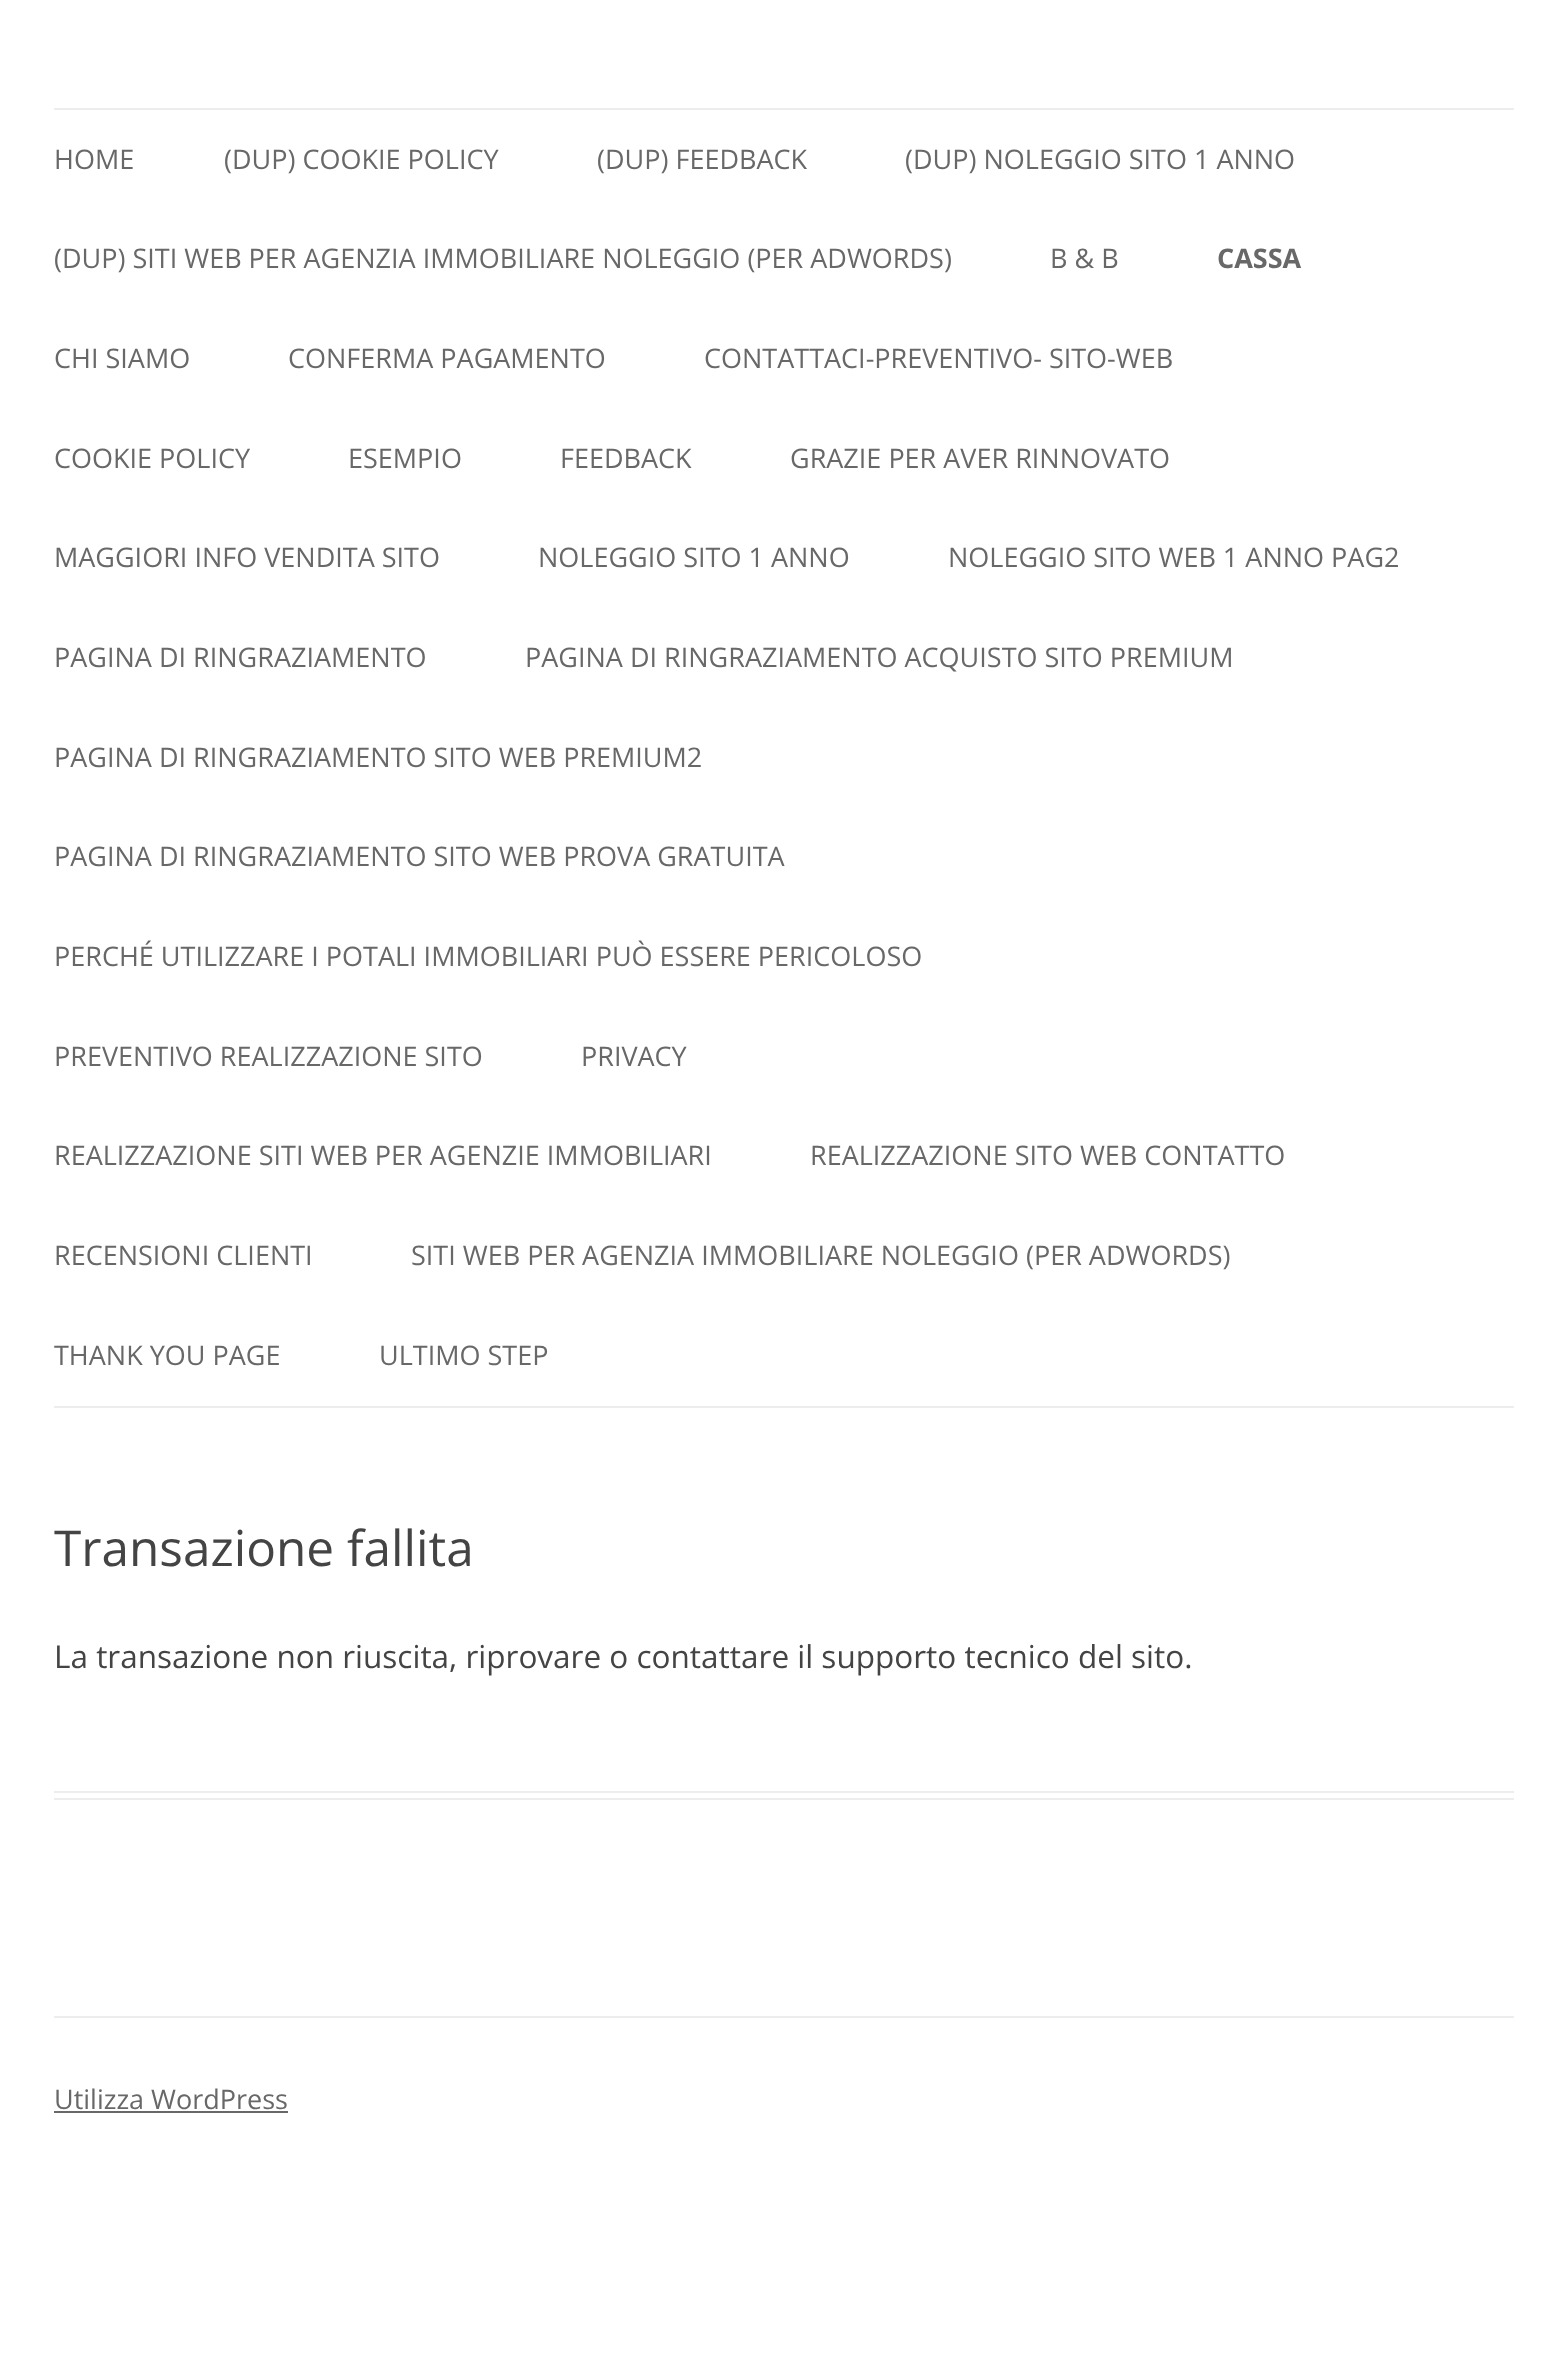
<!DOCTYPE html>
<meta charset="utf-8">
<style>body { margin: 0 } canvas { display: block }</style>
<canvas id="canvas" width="1568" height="2353"></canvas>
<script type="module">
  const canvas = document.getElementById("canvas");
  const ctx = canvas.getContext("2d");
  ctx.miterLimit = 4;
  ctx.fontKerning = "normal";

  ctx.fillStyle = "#ffffff";
  ctx.fillRect(0, 0, 1568, 2353);
  ctx.fillStyle = "#ededed";
  ctx.fillRect(54, 108, 1460, 2);
  ctx.fillRect(54, 1406, 1460, 2);
  ctx.font = "27px Open Sans";
  ctx.fillStyle = "#686868";
  ctx.fillText("HOME", 54, 169);
  ctx.fillText("(DUP) COOKIE POLICY", 224, 169);
  ctx.fillText("(DUP) FEEDBACK", 597, 169);
  ctx.fillText("(DUP) NOLEGGIO SITO 1 ANNO", 905, 169);
  ctx.fillText("(DUP) SITI WEB PER AGENZIA IMMOBILIARE NOLEGGIO (PER ADWORDS)", 54, 268);
  ctx.fillText("B & B", 1050, 268);
  ctx.font = "bold 27px Open Sans";
  ctx.fillText("CASSA", 1217, 268);
  ctx.font = "27px Open Sans";
  ctx.fillText("CHI SIAMO", 54, 368);
  ctx.fillText("CONFERMA PAGAMENTO", 288, 368);
  ctx.fillText("CONTATTACI-PREVENTIVO- SITO-WEB", 704, 368);
  ctx.fillText("COOKIE POLICY", 54, 468);
  ctx.fillText("ESEMPIO", 348, 468);
  ctx.fillText("FEEDBACK", 560, 468);
  ctx.fillText("GRAZIE PER AVER RINNOVATO", 790, 468);
  ctx.fillText("MAGGIORI INFO VENDITA SITO", 54, 567);
  ctx.fillText("NOLEGGIO SITO 1 ANNO", 538, 567);
  ctx.fillText("NOLEGGIO SITO WEB 1 ANNO PAG2", 948, 567);
  ctx.fillText("PAGINA DI RINGRAZIAMENTO", 54, 667);
  ctx.fillText("PAGINA DI RINGRAZIAMENTO ACQUISTO SITO PREMIUM", 525, 667);
  ctx.fillText("PAGINA DI RINGRAZIAMENTO SITO WEB PREMIUM2", 54, 767);
  ctx.fillText("PAGINA DI RINGRAZIAMENTO SITO WEB PROVA GRATUITA", 54, 866);
  ctx.fillText("PERCHÉ UTILIZZARE I POTALI IMMOBILIARI PUÒ ESSERE PERICOLOSO", 54, 966);
  ctx.fillText("PREVENTIVO REALIZZAZIONE SITO", 54, 1066);
  ctx.fillText("PRIVACY", 581, 1066);
  ctx.fillText("REALIZZAZIONE SITI WEB PER AGENZIE IMMOBILIARI", 54, 1165);
  ctx.fillText("REALIZZAZIONE SITO WEB CONTATTO", 810, 1165);
  ctx.fillText("RECENSIONI CLIENTI", 54, 1265);
  ctx.fillText("SITI WEB PER AGENZIA IMMOBILIARE NOLEGGIO (PER ADWORDS)", 411, 1265);
  ctx.fillText("THANK YOU PAGE", 54, 1365);
  ctx.fillText("ULTIMO STEP", 379, 1365);
  ctx.fillStyle = "#ededed";
  ctx.fillRect(54, 1791, 1460, 2);
  ctx.fillRect(54, 1798, 1460, 2);
  ctx.font = "49.5px Open Sans";
  ctx.fillStyle = "#444444";
  ctx.fillText("Transazione fallita", 54, 1566);
  ctx.font = "31.5px Open Sans";
  ctx.fillText("La transazione non riuscita, riprovare o contattare il supporto tecnico del sito.", 54, 1668);
  ctx.fillStyle = "#ededed";
  ctx.fillRect(54, 2016, 1460, 2);
  ctx.font = "27px Open Sans";
  ctx.fillStyle = "#686868";
  ctx.fillText("Utilizza WordPress", 54, 2109);
  ctx.fillRect(54, 2111, 234, 2);
</script>
